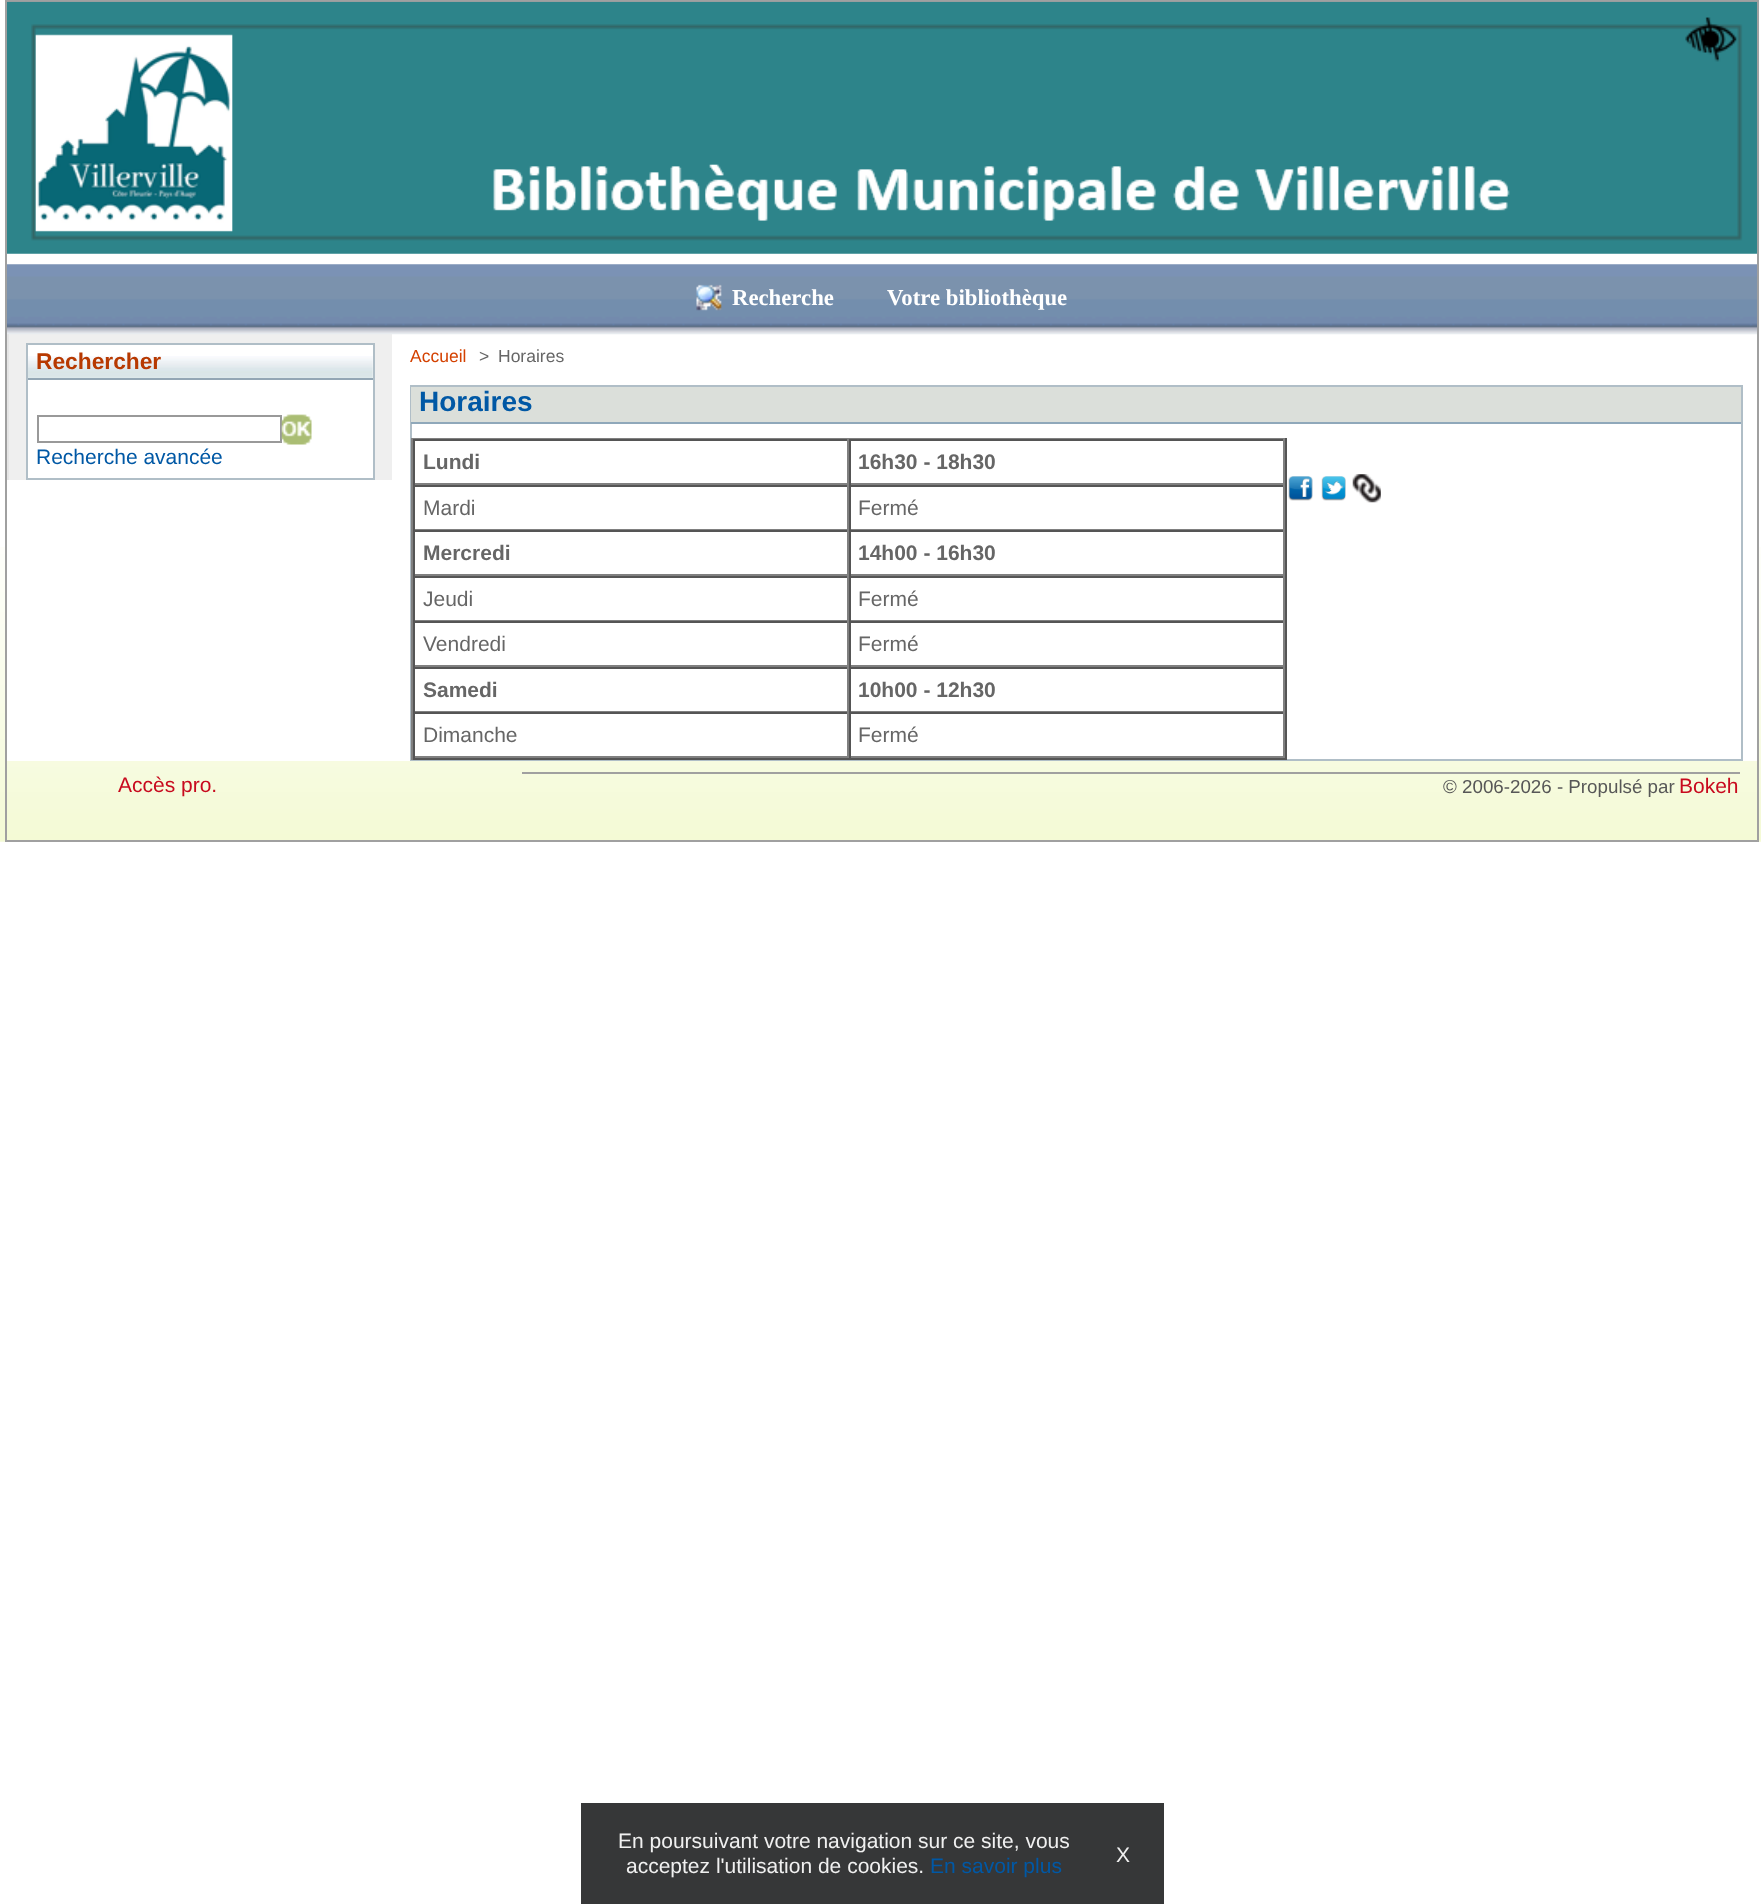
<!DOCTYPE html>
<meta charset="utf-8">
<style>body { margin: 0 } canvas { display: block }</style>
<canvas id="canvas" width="1761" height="1904"></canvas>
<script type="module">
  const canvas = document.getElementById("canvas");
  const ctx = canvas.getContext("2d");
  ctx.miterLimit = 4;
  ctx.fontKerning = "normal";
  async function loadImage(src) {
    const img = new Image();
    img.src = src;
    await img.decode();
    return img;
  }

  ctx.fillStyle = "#ffffff";
  ctx.fillRect(0, 0, 1761, 1904);
  ctx.drawImage(await loadImage("img1.png"), 0, 547, 1761, 295);
  ctx.strokeStyle = "#a0a0a0";
  ctx.lineWidth = 2;
  ctx.strokeRect(6, 1, 1752, 840);
  ctx.fillRect(7, 547, 1750, 214);
  ctx.drawImage(await loadImage("img2.png"), 7, 1, 1750, 253);
  ctx.drawImage(await loadImage("img3.png"), 1685, 17, 52, 45);
  ctx.fillStyle = "#efefef";
  ctx.fillRect(9, 334, 383, 146);
  ctx.fillStyle = "#e5e5e5";
  ctx.fillRect(7, 334, 2, 146);
  ctx.drawImage(await loadImage("img4.png"), 7, 264, 1750, 71);
  ctx.drawImage(await loadImage("img5.png"), 696, 284, 26, 27);
  ctx.font = "bold 22.75px Liberation Serif";
  ctx.fillStyle = "#ffffff";
  ctx.fillText("Recherche", 732, 305);
  ctx.fillText("Votre bibliothèque", 887, 305);
  ctx.beginPath();
  ctx.rect(27, 344, 347, 135);
  ctx.fill();
  ctx.strokeStyle = "#b0bec7";
  ctx.stroke();
  ctx.drawImage(await loadImage("img6.png"), 28, 356, 345, 22);
  ctx.fillStyle = "#93a6b4";
  ctx.fillRect(28, 378, 345, 2);
  ctx.font = "bold 22.75px Liberation Sans";
  ctx.fillStyle = "#b73901";
  ctx.fillText("Rechercher", 36, 369);
  ctx.strokeStyle = "#999999";
  ctx.strokeRect(38, 416, 243, 26);
  ctx.drawImage(await loadImage("img7.png"), 281, 414, 31, 31);
  ctx.font = "21px Liberation Sans";
  ctx.fillStyle = "#0058a5";
  ctx.fillText("Recherche avancée", 36, 464);
  ctx.font = "17.5px Liberation Sans";
  ctx.fillStyle = "#d44100";
  ctx.fillText("Accueil", 410, 362);
  ctx.fillStyle = "#666666";
  ctx.fillText(">", 479, 362);
  ctx.fillText("Horaires", 498, 362);
  ctx.strokeStyle = "#b0bec7";
  ctx.strokeRect(411, 386, 1331, 374);
  ctx.fillStyle = "#dbdfda";
  ctx.fillRect(411, 387, 1330, 35);
  ctx.fillStyle = "#8fa8ba";
  ctx.fillRect(411, 422, 1330, 2);
  ctx.font = "bold 28px Liberation Sans";
  ctx.fillStyle = "#0058a5";
  ctx.fillText("Horaires", 419, 411);
  ctx.fillStyle = "#808080";
  ctx.fillRect(411, 438, 875, 1);
  ctx.fillStyle = "#555555";
  ctx.fillRect(1285, 438, 2, 322);
  ctx.fillRect(411, 758, 875, 2);
  ctx.fillStyle = "#808080";
  ctx.fillRect(411, 438, 2, 322);
  ctx.fillStyle = "#555555";
  ctx.fillRect(413, 439, 872, 2);
  ctx.fillStyle = "#808080";
  ctx.fillRect(847, 439, 2, 46);
  ctx.fillRect(413, 483, 436, 2);
  ctx.fillStyle = "#555555";
  ctx.fillRect(413, 439, 2, 46);
  ctx.font = "bold 21px Liberation Sans";
  ctx.fillStyle = "#666666";
  ctx.fillText("Lundi", 423, 469);
  ctx.fillStyle = "#808080";
  ctx.fillRect(1283, 439, 2, 46);
  ctx.fillRect(849, 483, 436, 2);
  ctx.fillStyle = "#555555";
  ctx.fillRect(849, 439, 2, 46);
  ctx.fillStyle = "#666666";
  ctx.fillText("16h30 - 18h30", 858, 469);
  ctx.fillStyle = "#555555";
  ctx.fillRect(413, 485, 872, 2);
  ctx.fillStyle = "#808080";
  ctx.fillRect(847, 485, 2, 45);
  ctx.fillRect(413, 529, 436, 1);
  ctx.fillStyle = "#555555";
  ctx.fillRect(413, 485, 2, 45);
  ctx.font = "21px Liberation Sans";
  ctx.fillStyle = "#666666";
  ctx.fillText("Mardi", 423, 515);
  ctx.fillStyle = "#808080";
  ctx.fillRect(1283, 485, 2, 45);
  ctx.fillRect(849, 529, 436, 1);
  ctx.fillStyle = "#555555";
  ctx.fillRect(849, 485, 2, 45);
  ctx.fillStyle = "#666666";
  ctx.fillText("Fermé", 858, 515);
  ctx.fillStyle = "#555555";
  ctx.fillRect(413, 530, 872, 2);
  ctx.fillStyle = "#808080";
  ctx.fillRect(847, 530, 2, 46);
  ctx.fillRect(413, 574, 436, 2);
  ctx.fillStyle = "#555555";
  ctx.fillRect(413, 530, 2, 46);
  ctx.font = "bold 21px Liberation Sans";
  ctx.fillStyle = "#666666";
  ctx.fillText("Mercredi", 423, 560);
  ctx.fillStyle = "#808080";
  ctx.fillRect(1283, 530, 2, 46);
  ctx.fillRect(849, 574, 436, 2);
  ctx.fillStyle = "#555555";
  ctx.fillRect(849, 530, 2, 46);
  ctx.fillStyle = "#666666";
  ctx.fillText("14h00 - 16h30", 858, 560);
  ctx.fillStyle = "#555555";
  ctx.fillRect(413, 576, 872, 2);
  ctx.fillStyle = "#808080";
  ctx.fillRect(847, 576, 2, 45);
  ctx.fillRect(413, 620, 436, 1);
  ctx.fillStyle = "#555555";
  ctx.fillRect(413, 576, 2, 45);
  ctx.font = "21px Liberation Sans";
  ctx.fillStyle = "#666666";
  ctx.fillText("Jeudi", 423, 606);
  ctx.fillStyle = "#808080";
  ctx.fillRect(1283, 576, 2, 45);
  ctx.fillRect(849, 620, 436, 1);
  ctx.fillStyle = "#555555";
  ctx.fillRect(849, 576, 2, 45);
  ctx.fillStyle = "#666666";
  ctx.fillText("Fermé", 858, 606);
  ctx.fillStyle = "#555555";
  ctx.fillRect(413, 621, 872, 2);
  ctx.fillStyle = "#808080";
  ctx.fillRect(847, 621, 2, 46);
  ctx.fillRect(413, 665, 436, 2);
  ctx.fillStyle = "#555555";
  ctx.fillRect(413, 621, 2, 46);
  ctx.fillStyle = "#666666";
  ctx.fillText("Vendredi", 423, 651);
  ctx.fillStyle = "#808080";
  ctx.fillRect(1283, 621, 2, 46);
  ctx.fillRect(849, 665, 436, 2);
  ctx.fillStyle = "#555555";
  ctx.fillRect(849, 621, 2, 46);
  ctx.fillStyle = "#666666";
  ctx.fillText("Fermé", 858, 651);
  ctx.fillStyle = "#555555";
  ctx.fillRect(413, 667, 872, 2);
  ctx.fillStyle = "#808080";
  ctx.fillRect(847, 667, 2, 45);
  ctx.fillRect(413, 711, 436, 1);
  ctx.fillStyle = "#555555";
  ctx.fillRect(413, 667, 2, 45);
  ctx.font = "bold 21px Liberation Sans";
  ctx.fillStyle = "#666666";
  ctx.fillText("Samedi", 423, 697);
  ctx.fillStyle = "#808080";
  ctx.fillRect(1283, 667, 2, 45);
  ctx.fillRect(849, 711, 436, 1);
  ctx.fillStyle = "#555555";
  ctx.fillRect(849, 667, 2, 45);
  ctx.fillStyle = "#666666";
  ctx.fillText("10h00 - 12h30", 858, 697);
  ctx.fillStyle = "#555555";
  ctx.fillRect(413, 712, 872, 2);
  ctx.fillStyle = "#808080";
  ctx.fillRect(847, 712, 2, 46);
  ctx.fillRect(413, 756, 436, 2);
  ctx.fillStyle = "#555555";
  ctx.fillRect(413, 712, 2, 46);
  ctx.font = "21px Liberation Sans";
  ctx.fillStyle = "#666666";
  ctx.fillText("Dimanche", 423, 742);
  ctx.fillStyle = "#808080";
  ctx.fillRect(1283, 712, 2, 46);
  ctx.fillRect(849, 756, 436, 2);
  ctx.fillStyle = "#555555";
  ctx.fillRect(849, 712, 2, 46);
  ctx.fillStyle = "#666666";
  ctx.fillText("Fermé", 858, 742);
  ctx.drawImage(await loadImage("img8.png"), 1288, 476, 25, 25);
  ctx.drawImage(await loadImage("img9.png"), 1321, 476, 25, 25);
  ctx.drawImage(await loadImage("img10.png"), 1352, 474, 29, 29);
  ctx.fillStyle = "#c80a1e";
  ctx.fillText("Accès pro.", 118, 792);
  ctx.fillStyle = "#a0a0a0";
  ctx.fillRect(522, 772, 1218, 2);
  ctx.font = "18.75px Liberation Sans";
  ctx.fillStyle = "#575757";
  ctx.fillText("© 2006-2026 - Propulsé par", 1443, 793);
  ctx.font = "21px Liberation Sans";
  ctx.fillStyle = "#c80a1e";
  ctx.fillText("Bokeh", 1679, 793);
  ctx.fillStyle = "#363738";
  ctx.fillRect(581, 1803, 583, 101);
  ctx.fillStyle = "#f0f0f0";
  ctx.fillText("En poursuivant votre navigation sur ce site, vous", 618, 1848);
  ctx.fillText("acceptez l'utilisation de cookies.", 626, 1873);
  ctx.fillStyle = "#0058a5";
  ctx.fillText("En savoir plus", 930, 1873);
  ctx.fillStyle = "#f0f0f0";
  ctx.fillText("X", 1116, 1862);
</script>
